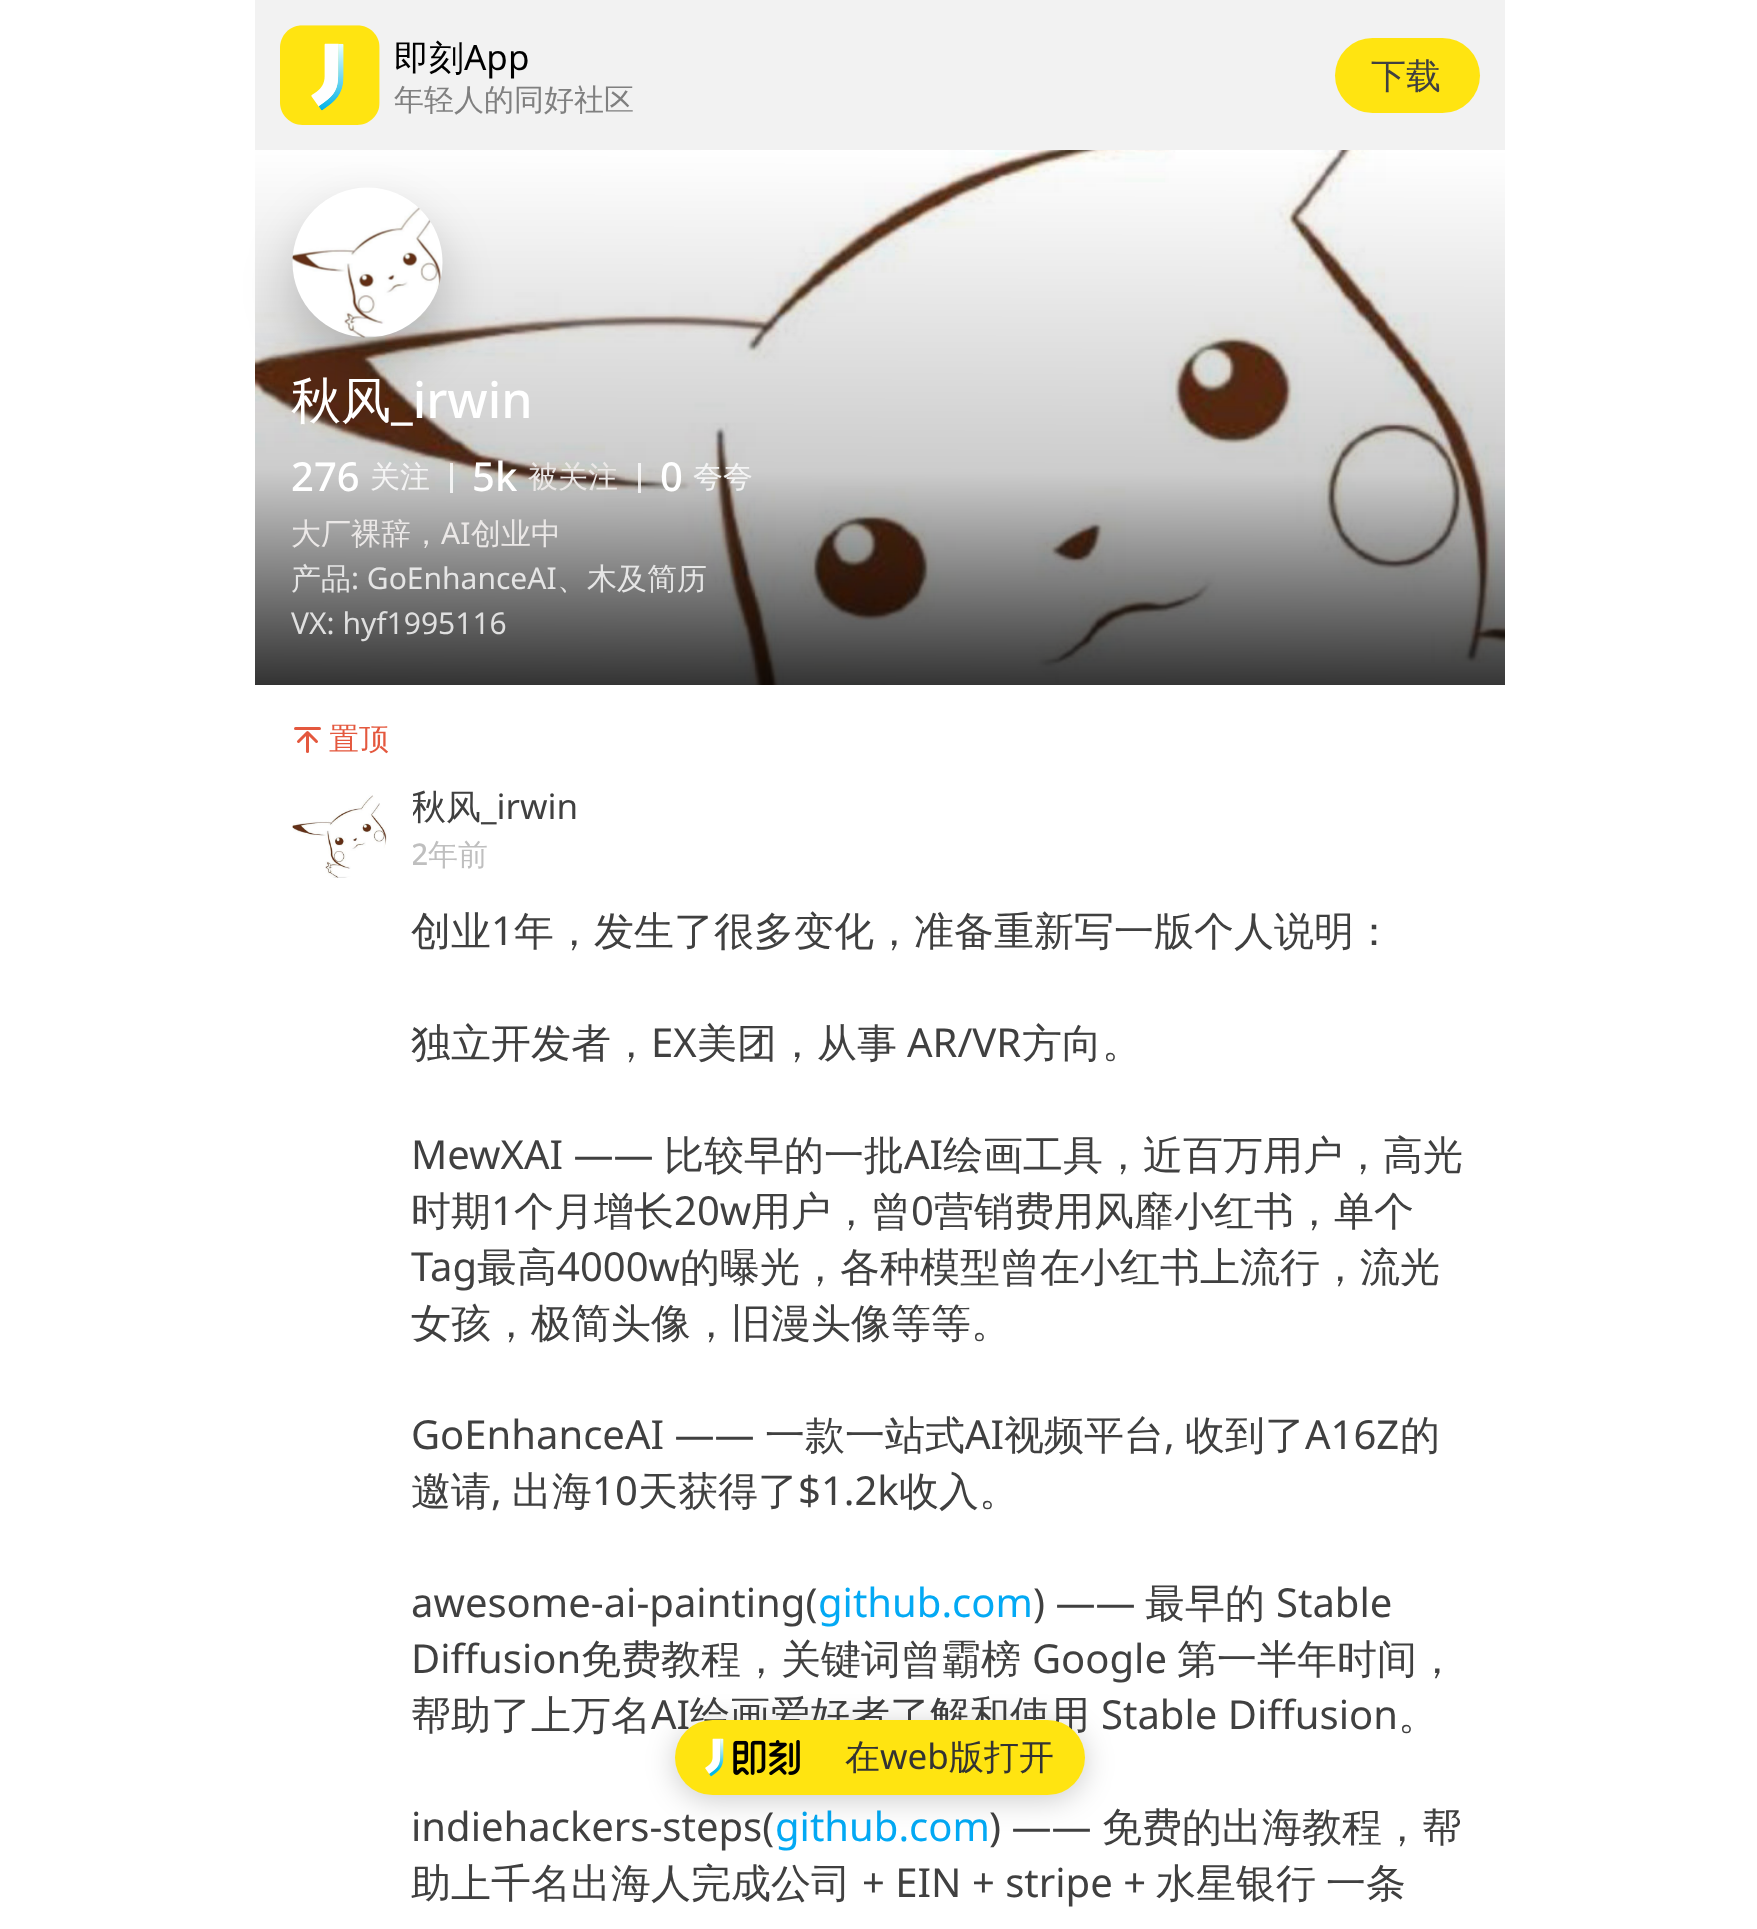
<!DOCTYPE html>
<meta charset="utf-8">
<style>body { margin: 0 } canvas { display: block }</style>
<canvas id="canvas" width="1757" height="1929"></canvas>
<script type="module">
  const canvas = document.getElementById("canvas");
  const ctx = canvas.getContext("2d");
  ctx.miterLimit = 4;
  ctx.fontKerning = "normal";
  async function loadImage(src) {
    const img = new Image();
    img.src = src;
    await img.decode();
    return img;
  }

  ctx.fillStyle = "#ffffff";
  ctx.fillRect(0, 0, 1757, 1929);
  ctx.fillStyle = "#f2f2f2";
  ctx.fillRect(255, 0, 1250, 150);
  ctx.drawImage(await loadImage("img1.png"), 280, 25, 100, 100);
  ctx.font = "500 35px WenQuanYi Zen Hei";
  ctx.fillStyle = "#000000";
  ctx.fillText("即刻", 394, 70);
  ctx.font = "35px Noto Sans";
  ctx.fillText("App", 464, 70);
  ctx.font = "500 30px WenQuanYi Zen Hei";
  ctx.fillStyle = "#808080";
  ctx.fillText("年轻人的同好社区", 394, 110);
  ctx.fillStyle = "#ffe411";
  ctx.beginPath();
  ctx.roundRect(1335, 38, 145, 75, 37.5);
  ctx.fill();
  ctx.font = "500 35px WenQuanYi Zen Hei";
  ctx.fillStyle = "#404040";
  ctx.fillText("下载", 1371, 88);
  ctx.drawImage(await loadImage("img2.png"), 255, 150, 1250, 535);
  ctx.fillStyle = "rgba(0, 0, 0, 0.2)";
  ctx.filter = "blur(25px)";
  ctx.beginPath();
  ctx.roundRect(293, 213, 150, 150, 75);
  ctx.fill();
  ctx.filter = "none";
  ctx.drawImage(await loadImage("img3.png"), 292, 187, 151, 151);
  ctx.font = "500 50px WenQuanYi Zen Hei";
  ctx.fillStyle = "#ffffff";
  ctx.fillText("秋风", 291, 418);
  ctx.font = "500 50px Noto Sans";
  ctx.fillText("_irwin", 391, 418);
  ctx.font = "500 40px Noto Sans";
  ctx.fillText("276", 291, 491);
  ctx.font = "500 30px WenQuanYi Zen Hei";
  ctx.fillStyle = "#f4f4f4";
  ctx.fillText("关注", 370, 487);
  ctx.fillStyle = "rgba(255, 255, 255, 0.8)";
  ctx.fillRect(450, 463, 3, 30);
  ctx.font = "500 40px Noto Sans";
  ctx.fillStyle = "#ffffff";
  ctx.fillText("5k", 472, 491);
  ctx.font = "500 30px WenQuanYi Zen Hei";
  ctx.fillStyle = "#ebe8e7";
  ctx.fillText("被关注", 528, 487);
  ctx.fillStyle = "rgba(255, 255, 255, 0.8)";
  ctx.fillRect(638, 463, 3, 30);
  ctx.font = "500 40px Noto Sans";
  ctx.fillStyle = "#ffffff";
  ctx.fillText("0", 660, 491);
  ctx.font = "500 30px WenQuanYi Zen Hei";
  ctx.fillStyle = "#f4f4f4";
  ctx.fillText("夸夸", 693, 487);
  ctx.fillStyle = "#ebe8e7";
  ctx.fillText("大厂裸辞，", 291, 544);
  ctx.font = "30px Noto Sans";
  ctx.fillText("AI", 441, 544);
  ctx.font = "500 30px WenQuanYi Zen Hei";
  ctx.fillText("创业中", 471, 544);
  ctx.fillStyle = "#e5e5e5";
  ctx.fillText("产品", 291, 589);
  ctx.font = "30px Noto Sans";
  ctx.fillText(": GoEnhanceAI", 351, 589);
  ctx.font = "500 30px WenQuanYi Zen Hei";
  ctx.fillText("、木及简历", 557, 589);
  ctx.font = "30px Noto Sans";
  ctx.fillStyle = "#dfdfdf";
  ctx.fillText("VX: hyf1995116", 291, 634);
  ctx.fillStyle = "#e4583e";
  ctx.beginPath();
  ctx.roundRect(294, 727, 27, 3, 1.5);
  ctx.fill();
  ctx.beginPath();
  ctx.roundRect(306, 733, 3, 20, 1.5);
  ctx.fill();
  ctx.beginPath();
  ctx.moveTo(298.5, 741.5);
  ctx.lineTo(307.5, 732.5);
  ctx.lineTo(316.5, 741.5);
  ctx.strokeStyle = "#e4583e";
  ctx.lineWidth = 3;
  ctx.lineCap = "round";
  ctx.lineJoin = "round";
  ctx.stroke();
  ctx.font = "500 30px WenQuanYi Zen Hei";
  ctx.fillText("置顶", 329, 749);
  ctx.drawImage(await loadImage("img4.png"), 292, 795, 95, 83);
  ctx.save();
  ctx.beginPath();
  ctx.rect(413, 783, 1067, 47);
  ctx.clip();
  ctx.font = "500 35px WenQuanYi Zen Hei";
  ctx.fillStyle = "#404040";
  ctx.fillText("秋风", 411, 819);
  ctx.restore();
  ctx.font = "35px Noto Sans";
  ctx.fillStyle = "#404040";
  ctx.fillText("_irwin", 481, 819);
  ctx.save();
  ctx.beginPath();
  ctx.rect(413, 835, 1067, 43);
  ctx.clip();
  ctx.font = "500 30px Noto Sans";
  ctx.fillStyle = "#bfbfbf";
  ctx.fillText("2", 411, 865);
  ctx.restore();
  ctx.font = "500 30px WenQuanYi Zen Hei";
  ctx.fillStyle = "#bfbfbf";
  ctx.fillText("年前", 428, 865);
  ctx.font = "500 40px WenQuanYi Zen Hei";
  ctx.fillStyle = "#404040";
  ctx.fillText("创业", 411, 945);
  ctx.font = "40px Noto Sans";
  ctx.fillText("1", 491, 945);
  ctx.font = "500 40px WenQuanYi Zen Hei";
  ctx.fillText("年，发生了很多变化，准备重新写一版个人说明：", 514, 945);
  ctx.fillText("独立开发者，", 411, 1057);
  ctx.font = "40px Noto Sans";
  ctx.fillText("EX", 651, 1057);
  ctx.font = "500 40px WenQuanYi Zen Hei";
  ctx.fillText("美团，从事", 697, 1057);
  ctx.font = "40px Noto Sans";
  ctx.fillText("AR/VR", 907, 1057);
  ctx.font = "500 40px WenQuanYi Zen Hei";
  ctx.fillText("方向。", 1022, 1057);
  ctx.font = "40px Noto Sans";
  ctx.fillText("MewXAI ——", 411, 1169);
  ctx.font = "500 40px WenQuanYi Zen Hei";
  ctx.fillText("比较早的一批", 664, 1169);
  ctx.font = "40px Noto Sans";
  ctx.fillText("AI", 904, 1169);
  ctx.font = "500 40px WenQuanYi Zen Hei";
  ctx.fillText("绘画工具，近百万用户，高光", 943, 1169);
  ctx.fillText("时期", 411, 1225);
  ctx.font = "40px Noto Sans";
  ctx.fillText("1", 491, 1225);
  ctx.font = "500 40px WenQuanYi Zen Hei";
  ctx.fillText("个月增长", 514, 1225);
  ctx.font = "40px Noto Sans";
  ctx.fillText("20w", 674, 1225);
  ctx.font = "500 40px WenQuanYi Zen Hei";
  ctx.fillText("用户，曾", 751, 1225);
  ctx.font = "40px Noto Sans";
  ctx.fillText("0", 911, 1225);
  ctx.font = "500 40px WenQuanYi Zen Hei";
  ctx.fillText("营销费用风靡小红书，单个", 934, 1225);
  ctx.font = "40px Noto Sans";
  ctx.fillText("Tag", 411, 1281);
  ctx.font = "500 40px WenQuanYi Zen Hei";
  ctx.fillText("最高", 477, 1281);
  ctx.font = "40px Noto Sans";
  ctx.fillText("4000w", 557, 1281);
  ctx.font = "500 40px WenQuanYi Zen Hei";
  ctx.fillText("的曝光，各种模型曾在小红书上流行，流光", 680, 1281);
  ctx.fillText("女孩，极简头像，旧漫头像等等。", 411, 1337);
  ctx.font = "40px Noto Sans";
  ctx.fillText("GoEnhanceAI ——", 411, 1449);
  ctx.font = "500 40px WenQuanYi Zen Hei";
  ctx.fillText("一款一站式", 765, 1449);
  ctx.font = "40px Noto Sans";
  ctx.fillText("AI", 965, 1449);
  ctx.font = "500 40px WenQuanYi Zen Hei";
  ctx.fillText("视频平台", 1004, 1449);
  ctx.font = "40px Noto Sans";
  ctx.fillText(",", 1164, 1449);
  ctx.font = "500 40px WenQuanYi Zen Hei";
  ctx.fillText("收到了", 1185, 1449);
  ctx.font = "40px Noto Sans";
  ctx.fillText("A16Z", 1305, 1449);
  ctx.font = "500 40px WenQuanYi Zen Hei";
  ctx.fillText("的", 1400, 1449);
  ctx.fillText("邀请", 411, 1505);
  ctx.font = "40px Noto Sans";
  ctx.fillText(",", 491, 1505);
  ctx.font = "500 40px WenQuanYi Zen Hei";
  ctx.fillText("出海", 512, 1505);
  ctx.font = "40px Noto Sans";
  ctx.fillText("10", 592, 1505);
  ctx.font = "500 40px WenQuanYi Zen Hei";
  ctx.fillText("天获得了", 638, 1505);
  ctx.font = "40px Noto Sans";
  ctx.fillText("$1.2k", 798, 1505);
  ctx.font = "500 40px WenQuanYi Zen Hei";
  ctx.fillText("收入。", 899, 1505);
  ctx.font = "40px Noto Sans";
  ctx.fillText("awesome-ai-painting(", 411, 1617);
  ctx.fillStyle = "#03a9f4";
  ctx.fillText("github.com", 818, 1617);
  ctx.fillStyle = "#404040";
  ctx.fillText(") ——", 1033, 1617);
  ctx.font = "500 40px WenQuanYi Zen Hei";
  ctx.fillText("最早的", 1145, 1617);
  ctx.font = "40px Noto Sans";
  ctx.fillText("Stable", 1276, 1617);
  ctx.fillText("Diffusion", 411, 1673);
  ctx.font = "500 40px WenQuanYi Zen Hei";
  ctx.fillText("免费教程，关键词曾霸榜", 581, 1673);
  ctx.font = "40px Noto Sans";
  ctx.fillText("Google", 1032, 1673);
  ctx.font = "500 40px WenQuanYi Zen Hei";
  ctx.fillText("第一半年时间，", 1177, 1673);
  ctx.fillText("帮助了上万名", 411, 1729);
  ctx.font = "40px Noto Sans";
  ctx.fillText("AI", 651, 1729);
  ctx.font = "500 40px WenQuanYi Zen Hei";
  ctx.fillText("绘画爱好者了解和使用", 690, 1729);
  ctx.font = "40px Noto Sans";
  ctx.fillText("Stable Diffusion", 1101, 1729);
  ctx.font = "500 40px WenQuanYi Zen Hei";
  ctx.fillText("。", 1398, 1729);
  ctx.font = "40px Noto Sans";
  ctx.fillText("indiehackers-steps(", 411, 1841);
  ctx.fillStyle = "#03a9f4";
  ctx.fillText("github.com", 775, 1841);
  ctx.fillStyle = "#404040";
  ctx.fillText(") ——", 989, 1841);
  ctx.font = "500 40px WenQuanYi Zen Hei";
  ctx.fillText("免费的出海教程，帮", 1102, 1841);
  ctx.fillText("助上千名出海人完成公司", 411, 1897);
  ctx.font = "40px Noto Sans";
  ctx.fillText("+ EIN + stripe +", 862, 1897);
  ctx.font = "500 40px WenQuanYi Zen Hei";
  ctx.fillText("水星银行", 1156, 1897);
  ctx.fillText("一条", 1326, 1897);
  ctx.fillStyle = "rgba(0, 0, 0, 0.2)";
  ctx.filter = "blur(15px)";
  ctx.beginPath();
  ctx.roundRect(675, 1725, 410, 75, 37.5);
  ctx.fill();
  ctx.filter = "none";
  ctx.fillStyle = "#ffe411";
  ctx.beginPath();
  ctx.roundRect(675, 1720, 410, 75, 37.5);
  ctx.fill();
  ctx.drawImage(await loadImage("img5.png"), 705, 1738, 95, 39);
  ctx.font = "500 35px WenQuanYi Zen Hei";
  ctx.fillStyle = "#333333";
  ctx.fillText("在", 845, 1769);
  ctx.font = "35px Noto Sans";
  ctx.fillText("web", 880, 1769);
  ctx.font = "500 35px WenQuanYi Zen Hei";
  ctx.fillText("版打开", 949, 1769);
</script>
